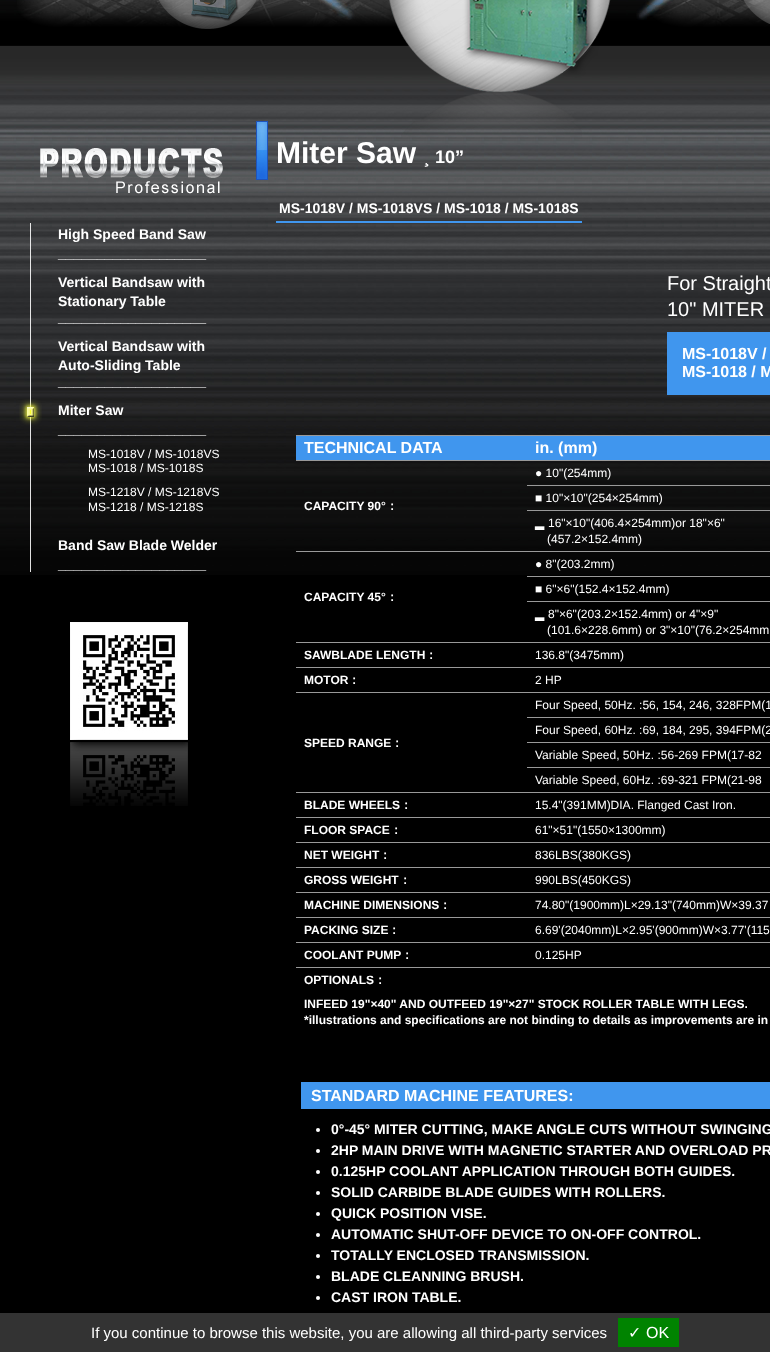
<!DOCTYPE html>
<meta charset="utf-8">
<style>body { margin: 0 } canvas { display: block }</style>
<canvas id="canvas" width="770" height="1352"></canvas>
<script type="module">
  const canvas = document.getElementById("canvas");
  const ctx = canvas.getContext("2d");
  ctx.miterLimit = 4;
  ctx.fontKerning = "normal";
  async function loadImage(src) {
    const img = new Image();
    img.src = src;
    await img.decode();
    return img;
  }

  ctx.fillStyle = "#000000";
  ctx.fillRect(0, 0, 770, 1352);
  ctx.drawImage(await loadImage("img1.png"), 0, 0, 770, 575);
  ctx.drawImage(await loadImage("img2.png"), 17, 0, 753, 121);
  ctx.drawImage(await loadImage("img3.png"), 158, 0, 99, 29);
  ctx.drawImage(await loadImage("img4.png"), 389, 0, 222, 92);
  ctx.drawImage(await loadImage("img5.png"), 743, 0, 27, 24);
  ctx.drawImage(await loadImage("img6.png"), 318, 0, 37, 20);
  ctx.drawImage(await loadImage("img7.png"), 636, 0, 37, 20);
  ctx.drawImage(await loadImage("img8.png"), 40, 148, 183, 46);
  ctx.fillStyle = "rgba(255, 255, 255, 0.88)";
  ctx.fillRect(30, 223, 1, 349);
  ctx.font = "bold 14px Liberation Sans";
  ctx.fillStyle = "#ffffff";
  ctx.fillText("High Speed Band Saw", 58, 239);
  ctx.fillText("___________________", 58, 258);
  ctx.fillText("Vertical Bandsaw with", 58, 287);
  ctx.fillText("Stationary Table", 58, 306);
  ctx.fillText("___________________", 58, 322);
  ctx.fillText("Vertical Bandsaw with", 58, 351);
  ctx.fillText("Auto-Sliding Table", 58, 370);
  ctx.fillText("___________________", 58, 386);
  ctx.drawImage(await loadImage("img9.png"), 19, 399, 23, 26);
  ctx.fillText("Miter Saw", 58, 415);
  ctx.fillText("___________________", 58, 434);
  ctx.font = "12px Liberation Sans";
  ctx.fillText("MS-1018V / MS-1018VS", 88, 458);
  ctx.fillText("MS-1018 / MS-1018S", 88, 472);
  ctx.fillText("MS-1218V / MS-1218VS", 88, 496);
  ctx.fillText("MS-1218 / MS-1218S", 88, 511);
  ctx.font = "bold 14px Liberation Sans";
  ctx.fillText("Band Saw Blade Welder", 58, 550);
  ctx.fillText("___________________", 58, 569);
  ctx.drawImage(await loadImage("img10.png"), 70, 742, 118, 64);
  ctx.drawImage(await loadImage("img11.png"), 70, 622, 118, 118);
  ctx.drawImage(await loadImage("img12.png"), 401, 121, 181, 16);
  ctx.drawImage(await loadImage("img13.png"), 256, 121, 12, 59);
  ctx.font = "bold 30px Liberation Sans";
  ctx.fillText("Miter Saw", 276, 163);
  ctx.font = "bold 18px Liberation Sans";
  ctx.fillText("¸ 10”", 424, 163);
  ctx.font = "bold 14px Liberation Sans";
  ctx.fillText("MS-1018V / MS-1018VS / MS-1018 / MS-1018S", 279, 213);
  ctx.fillStyle = "#4096ee";
  ctx.fillRect(276, 221, 306, 2);
  ctx.font = "20px Liberation Sans";
  ctx.fillStyle = "#ffffff";
  ctx.fillText("For Straight", 667, 290);
  ctx.fillText("10\" MITER", 667, 316);
  ctx.fillStyle = "#4096ee";
  ctx.fillRect(667, 332, 103, 63);
  ctx.font = "bold 16px Liberation Sans";
  ctx.fillStyle = "#ffffff";
  ctx.fillText("MS-1018V /", 682, 359);
  ctx.fillText("MS-1018 / M", 682, 377);
  ctx.fillStyle = "#999999";
  ctx.fillRect(296, 435, 474, 1);
  ctx.fillStyle = "#4096ee";
  ctx.fillRect(296, 436, 474, 24);
  ctx.fillStyle = "#999999";
  ctx.fillRect(296, 460, 474, 1);
  ctx.fillStyle = "#ffffff";
  ctx.fillText("TECHNICAL DATA", 304, 453);
  ctx.fillText("in. (mm)", 535, 453);
  ctx.fillStyle = "#999999";
  ctx.fillRect(527, 485, 243, 1);
  ctx.font = "12px Liberation Sans";
  ctx.fillStyle = "#ffffff";
  ctx.fillText("● 10\"(254mm)", 535, 477);
  ctx.fillStyle = "#999999";
  ctx.fillRect(296, 551, 474, 1);
  ctx.font = "bold 12px Liberation Sans";
  ctx.fillStyle = "#ffffff";
  ctx.fillText("CAPACITY 90°", 304, 510);
  ctx.font = "bold 12px WenQuanYi Zen Hei";
  ctx.fillText("：", 386, 510);
  ctx.fillStyle = "#999999";
  ctx.fillRect(527, 510, 243, 1);
  ctx.font = "12px Liberation Sans";
  ctx.fillStyle = "#ffffff";
  ctx.fillText("■ 10\"×10\"(254×254mm)", 535, 502);
  ctx.font = "12px DejaVu Sans";
  ctx.fillText("▂", 535, 527);
  ctx.font = "12px Liberation Sans";
  ctx.fillText("16\"×10\"(406.4×254mm)or 18\"×6\"", 548, 527);
  ctx.fillText("(457.2×152.4mm)", 547, 543);
  ctx.fillStyle = "#999999";
  ctx.fillRect(527, 576, 243, 1);
  ctx.fillStyle = "#ffffff";
  ctx.fillText("● 8\"(203.2mm)", 535, 568);
  ctx.fillStyle = "#999999";
  ctx.fillRect(296, 642, 474, 1);
  ctx.font = "bold 12px Liberation Sans";
  ctx.fillStyle = "#ffffff";
  ctx.fillText("CAPACITY 45°", 304, 601);
  ctx.font = "bold 12px WenQuanYi Zen Hei";
  ctx.fillText("：", 386, 601);
  ctx.fillStyle = "#999999";
  ctx.fillRect(527, 601, 243, 1);
  ctx.font = "12px Liberation Sans";
  ctx.fillStyle = "#ffffff";
  ctx.fillText("■ 6\"×6\"(152.4×152.4mm)", 535, 593);
  ctx.font = "12px DejaVu Sans";
  ctx.fillText("▂", 535, 618);
  ctx.font = "12px Liberation Sans";
  ctx.fillText("8\"×6\"(203.2×152.4mm) or 4\"×9\"", 548, 618);
  ctx.fillText("(101.6×228.6mm) or 3\"×10\"(76.2×254mm", 547, 634);
  ctx.fillStyle = "#999999";
  ctx.fillRect(296, 667, 474, 1);
  ctx.font = "bold 12px Liberation Sans";
  ctx.fillStyle = "#ffffff";
  ctx.fillText("SAWBLADE LENGTH", 304, 659);
  ctx.font = "bold 12px WenQuanYi Zen Hei";
  ctx.fillText("：", 425, 659);
  ctx.font = "12px Liberation Sans";
  ctx.fillText("136.8\"(3475mm)", 535, 659);
  ctx.fillStyle = "#999999";
  ctx.fillRect(296, 692, 474, 1);
  ctx.font = "bold 12px Liberation Sans";
  ctx.fillStyle = "#ffffff";
  ctx.fillText("MOTOR", 304, 684);
  ctx.font = "bold 12px WenQuanYi Zen Hei";
  ctx.fillText("：", 348, 684);
  ctx.font = "12px Liberation Sans";
  ctx.fillText("2 HP", 535, 684);
  ctx.fillStyle = "#999999";
  ctx.fillRect(527, 717, 243, 1);
  ctx.fillStyle = "#ffffff";
  ctx.fillText("Four Speed, 50Hz. :56, 154, 246, 328FPM(1", 535, 709);
  ctx.fillStyle = "#999999";
  ctx.fillRect(296, 792, 474, 1);
  ctx.font = "bold 12px Liberation Sans";
  ctx.fillStyle = "#ffffff";
  ctx.fillText("SPEED RANGE", 304, 747);
  ctx.font = "bold 12px WenQuanYi Zen Hei";
  ctx.fillText("：", 391, 747);
  ctx.fillStyle = "#999999";
  ctx.fillRect(527, 742, 243, 1);
  ctx.font = "12px Liberation Sans";
  ctx.fillStyle = "#ffffff";
  ctx.fillText("Four Speed, 60Hz. :69, 184, 295, 394FPM(2", 535, 734);
  ctx.fillStyle = "#999999";
  ctx.fillRect(527, 767, 243, 1);
  ctx.fillStyle = "#ffffff";
  ctx.fillText("Variable Speed, 50Hz. :56-269 FPM(17-82", 535, 759);
  ctx.fillText("Variable Speed, 60Hz. :69-321 FPM(21-98", 535, 784);
  ctx.fillStyle = "#999999";
  ctx.fillRect(296, 817, 474, 1);
  ctx.font = "bold 12px Liberation Sans";
  ctx.fillStyle = "#ffffff";
  ctx.fillText("BLADE WHEELS", 304, 809);
  ctx.font = "bold 12px WenQuanYi Zen Hei";
  ctx.fillText("：", 400, 809);
  ctx.font = "12px Liberation Sans";
  ctx.fillText("15.4\"(391MM)DIA. Flanged Cast Iron.", 535, 809);
  ctx.fillStyle = "#999999";
  ctx.fillRect(296, 842, 474, 1);
  ctx.font = "bold 12px Liberation Sans";
  ctx.fillStyle = "#ffffff";
  ctx.fillText("FLOOR SPACE", 304, 834);
  ctx.font = "bold 12px WenQuanYi Zen Hei";
  ctx.fillText("：", 390, 834);
  ctx.font = "12px Liberation Sans";
  ctx.fillText("61\"×51\"(1550×1300mm)", 535, 834);
  ctx.fillStyle = "#999999";
  ctx.fillRect(296, 867, 474, 1);
  ctx.font = "bold 12px Liberation Sans";
  ctx.fillStyle = "#ffffff";
  ctx.fillText("NET WEIGHT", 304, 859);
  ctx.font = "bold 12px WenQuanYi Zen Hei";
  ctx.fillText("：", 379, 859);
  ctx.font = "12px Liberation Sans";
  ctx.fillText("836LBS(380KGS)", 535, 859);
  ctx.fillStyle = "#999999";
  ctx.fillRect(296, 892, 474, 1);
  ctx.font = "bold 12px Liberation Sans";
  ctx.fillStyle = "#ffffff";
  ctx.fillText("GROSS WEIGHT", 304, 884);
  ctx.font = "bold 12px WenQuanYi Zen Hei";
  ctx.fillText("：", 399, 884);
  ctx.font = "12px Liberation Sans";
  ctx.fillText("990LBS(450KGS)", 535, 884);
  ctx.fillStyle = "#999999";
  ctx.fillRect(296, 917, 474, 1);
  ctx.font = "bold 12px Liberation Sans";
  ctx.fillStyle = "#ffffff";
  ctx.fillText("MACHINE DIMENSIONS", 304, 909);
  ctx.font = "bold 12px WenQuanYi Zen Hei";
  ctx.fillText("：", 439, 909);
  ctx.font = "12px Liberation Sans";
  ctx.fillText("74.80\"(1900mm)L×29.13\"(740mm)W×39.37", 535, 909);
  ctx.fillStyle = "#999999";
  ctx.fillRect(296, 942, 474, 1);
  ctx.font = "bold 12px Liberation Sans";
  ctx.fillStyle = "#ffffff";
  ctx.fillText("PACKING SIZE", 304, 934);
  ctx.font = "bold 12px WenQuanYi Zen Hei";
  ctx.fillText("：", 388, 934);
  ctx.font = "12px Liberation Sans";
  ctx.fillText("6.69'(2040mm)L×2.95'(900mm)W×3.77'(115", 535, 934);
  ctx.fillStyle = "#999999";
  ctx.fillRect(296, 967, 474, 1);
  ctx.font = "bold 12px Liberation Sans";
  ctx.fillStyle = "#ffffff";
  ctx.fillText("COOLANT PUMP", 304, 959);
  ctx.font = "bold 12px WenQuanYi Zen Hei";
  ctx.fillText("：", 401, 959);
  ctx.font = "12px Liberation Sans";
  ctx.fillText("0.125HP", 535, 959);
  ctx.font = "bold 12px Liberation Sans";
  ctx.fillText("OPTIONALS", 304, 984);
  ctx.font = "bold 12px WenQuanYi Zen Hei";
  ctx.fillText("：", 374, 984);
  ctx.font = "bold 12px Liberation Sans";
  ctx.fillText("INFEED 19\"×40\" AND OUTFEED 19\"×27\" STOCK ROLLER TABLE WITH LEGS.", 304, 1008);
  ctx.fillText("*illustrations and specifications are not binding to details as improvements are in", 304, 1024);
  ctx.fillStyle = "#4096ee";
  ctx.fillRect(301, 1082, 469, 27);
  ctx.font = "bold 16px Liberation Sans";
  ctx.fillStyle = "#ffffff";
  ctx.fillText("STANDARD MACHINE FEATURES:", 311, 1101);
  ctx.beginPath();
  ctx.arc(318, 1130, 2, 0, Math.PI * 2);
  ctx.fill();
  ctx.font = "bold 14px Liberation Sans";
  ctx.fillText("0°-45° MITER CUTTING, MAKE ANGLE CUTS WITHOUT SWINGING", 331, 1134);
  ctx.beginPath();
  ctx.arc(318, 1151, 2, 0, Math.PI * 2);
  ctx.fill();
  ctx.fillText("2HP MAIN DRIVE WITH MAGNETIC STARTER AND OVERLOAD PR", 331, 1155);
  ctx.beginPath();
  ctx.arc(318, 1172, 2, 0, Math.PI * 2);
  ctx.fill();
  ctx.fillText("0.125HP COOLANT APPLICATION THROUGH BOTH GUIDES.", 331, 1176);
  ctx.beginPath();
  ctx.arc(318, 1193, 2, 0, Math.PI * 2);
  ctx.fill();
  ctx.fillText("SOLID CARBIDE BLADE GUIDES WITH ROLLERS.", 331, 1197);
  ctx.beginPath();
  ctx.arc(318, 1214, 2, 0, Math.PI * 2);
  ctx.fill();
  ctx.fillText("QUICK POSITION VISE.", 331, 1218);
  ctx.beginPath();
  ctx.arc(318, 1235, 2, 0, Math.PI * 2);
  ctx.fill();
  ctx.fillText("AUTOMATIC SHUT-OFF DEVICE TO ON-OFF CONTROL.", 331, 1239);
  ctx.beginPath();
  ctx.arc(318, 1256, 2, 0, Math.PI * 2);
  ctx.fill();
  ctx.fillText("TOTALLY ENCLOSED TRANSMISSION.", 331, 1260);
  ctx.beginPath();
  ctx.arc(318, 1277, 2, 0, Math.PI * 2);
  ctx.fill();
  ctx.fillText("BLADE CLEANNING BRUSH.", 331, 1281);
  ctx.beginPath();
  ctx.arc(318, 1298, 2, 0, Math.PI * 2);
  ctx.fill();
  ctx.fillText("CAST IRON TABLE.", 331, 1302);
  ctx.fillStyle = "#333333";
  ctx.fillRect(0, 1313, 770, 39);
  ctx.font = "15px Liberation Sans";
  ctx.fillStyle = "#ffffff";
  ctx.fillText("If you continue to browse this website, you are allowing all third-party services", 91, 1338);
  ctx.fillStyle = "#008300";
  ctx.fillRect(618, 1318, 61, 29);
  ctx.font = "16px DejaVu Sans";
  ctx.fillStyle = "#ffffff";
  ctx.fillText("✓", 628, 1338);
  ctx.font = "16px Liberation Sans";
  ctx.fillText("OK", 646, 1338);
</script>
